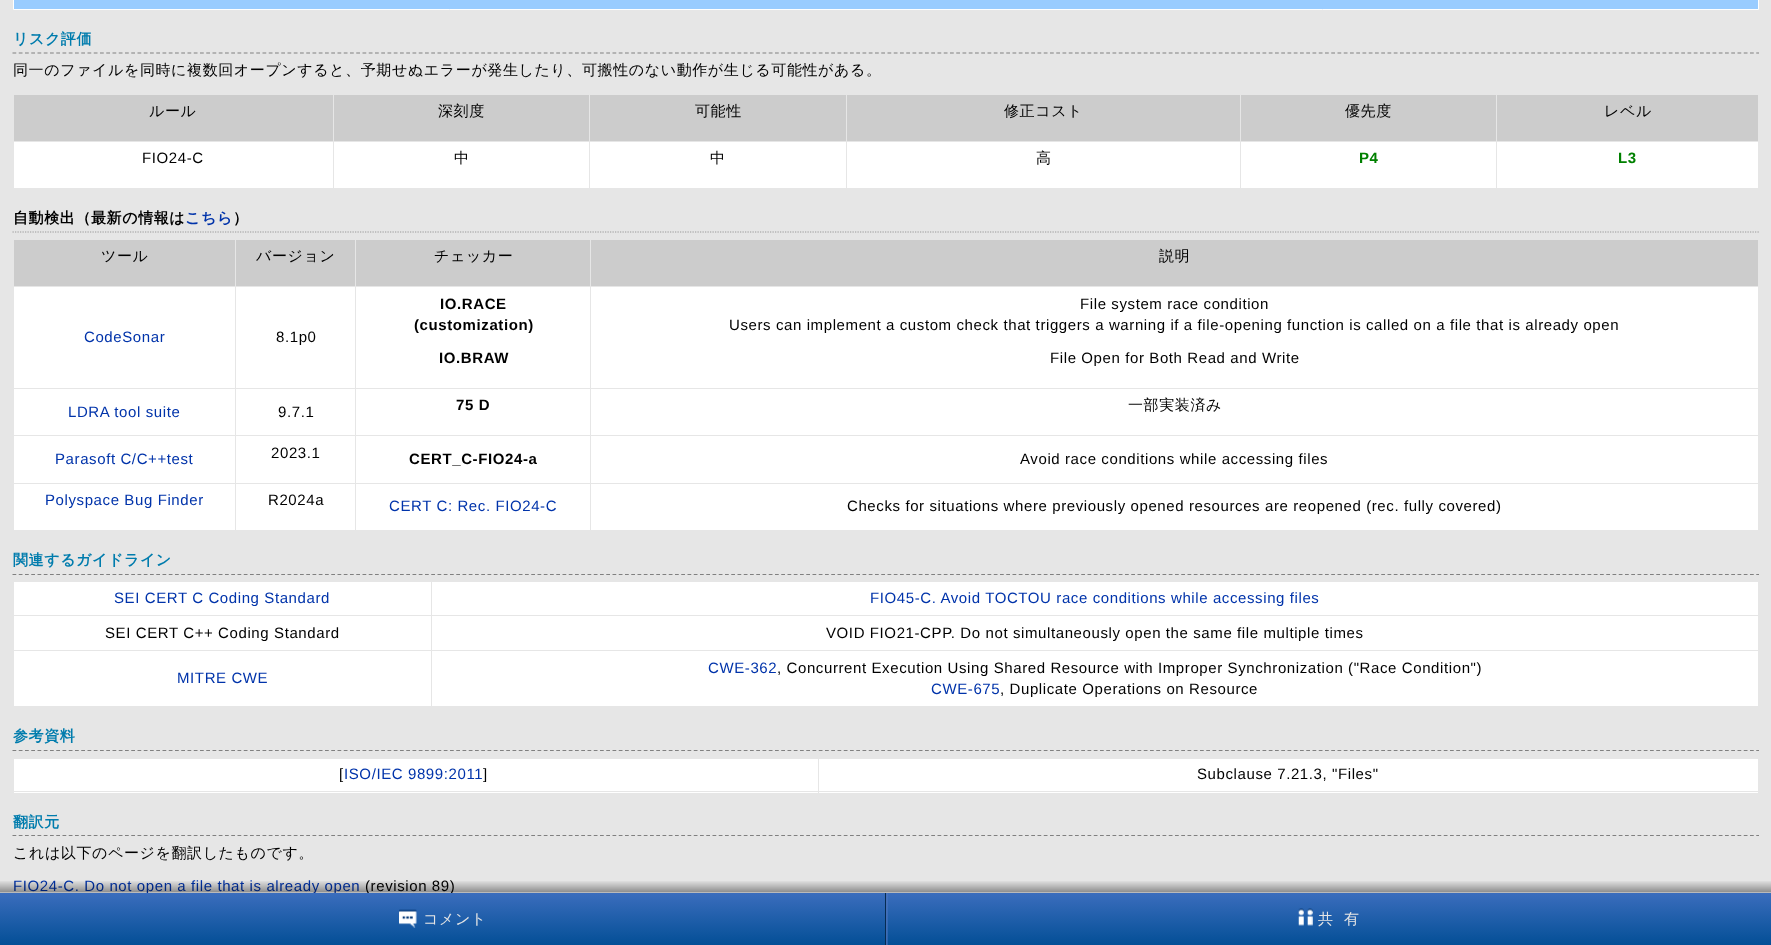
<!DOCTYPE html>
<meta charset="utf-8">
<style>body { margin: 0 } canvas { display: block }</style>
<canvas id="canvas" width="1771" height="945"></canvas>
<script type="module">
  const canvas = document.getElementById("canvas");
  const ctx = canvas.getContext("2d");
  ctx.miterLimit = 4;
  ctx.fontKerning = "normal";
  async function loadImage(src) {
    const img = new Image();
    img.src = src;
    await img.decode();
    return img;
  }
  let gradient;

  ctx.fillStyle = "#e6e6e6";
  ctx.fillRect(0, 0, 1771, 945);
  ctx.fillStyle = "#99ccff";
  ctx.beginPath();
  ctx.rect(13.5, -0.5, 1745, 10);
  ctx.fill();
  ctx.strokeStyle = "#ffffff";
  ctx.stroke();
  ctx.beginPath();
  ctx.moveTo(12.5, 53);
  ctx.lineTo(1759, 53);
  ctx.strokeStyle = "#808080";
  ctx.lineWidth = 1.2;
  ctx.setLineDash([3.75, 2.5]);
  ctx.stroke();
  ctx.letterSpacing = "0.6px";
  ctx.font = "bold 15px WenQuanYi Zen Hei";
  ctx.fillStyle = "#007cad";
  ctx.fillText("リスク評価", 13, 44);
  ctx.font = "500 15px WenQuanYi Zen Hei";
  ctx.fillStyle = "#000000";
  ctx.fillText("同一のファイルを同時に複数回オープンすると、予期せぬエラーが発生したり、可搬性のない動作が生じる可能性がある。", 13, 75);
  ctx.fillStyle = "#cccccc";
  ctx.fillRect(14, 95, 319, 46);
  ctx.fillStyle = "#000000";
  ctx.fillText("ルール", 149, 116);
  ctx.fillStyle = "#cccccc";
  ctx.fillRect(334, 95, 255, 46);
  ctx.fillStyle = "#000000";
  ctx.fillText("深刻度", 438, 116);
  ctx.fillStyle = "#cccccc";
  ctx.fillRect(590, 95, 256, 46);
  ctx.fillStyle = "#000000";
  ctx.fillText("可能性", 695, 116);
  ctx.fillStyle = "#cccccc";
  ctx.fillRect(847, 95, 393, 46);
  ctx.fillStyle = "#000000";
  ctx.fillText("修正コスト", 1004, 116);
  ctx.fillStyle = "#cccccc";
  ctx.fillRect(1241, 95, 255, 46);
  ctx.fillStyle = "#000000";
  ctx.fillText("優先度", 1345, 116);
  ctx.fillStyle = "#cccccc";
  ctx.fillRect(1497, 95, 261, 46);
  ctx.fillStyle = "#000000";
  ctx.fillText("レベル", 1604, 116);
  ctx.fillStyle = "#ffffff";
  ctx.fillRect(14, 142, 319, 46);
  ctx.font = "15px Liberation Sans";
  ctx.fillStyle = "#000000";
  ctx.fillText("FIO24-C", 142, 163);
  ctx.fillStyle = "#ffffff";
  ctx.fillRect(334, 142, 255, 46);
  ctx.font = "500 15px WenQuanYi Zen Hei";
  ctx.fillStyle = "#000000";
  ctx.fillText("中", 454, 163);
  ctx.fillStyle = "#ffffff";
  ctx.fillRect(590, 142, 256, 46);
  ctx.fillStyle = "#000000";
  ctx.fillText("中", 710, 163);
  ctx.fillStyle = "#ffffff";
  ctx.fillRect(847, 142, 393, 46);
  ctx.fillStyle = "#000000";
  ctx.fillText("高", 1036, 163);
  ctx.fillStyle = "#ffffff";
  ctx.fillRect(1241, 142, 255, 46);
  ctx.font = "bold 15px Liberation Sans";
  ctx.fillStyle = "#008000";
  ctx.fillText("P4", 1359, 163);
  ctx.fillStyle = "#ffffff";
  ctx.fillRect(1497, 142, 261, 46);
  ctx.fillStyle = "#008000";
  ctx.fillText("L3", 1618, 163);
  ctx.beginPath();
  ctx.moveTo(12.5, 232);
  ctx.lineTo(1759, 232);
  ctx.strokeStyle = "#999999";
  ctx.setLineDash([1.25, 1.25]);
  ctx.stroke();
  ctx.font = "bold 15px WenQuanYi Zen Hei";
  ctx.fillStyle = "#000000";
  ctx.fillText("自動検出（最新の情報は", 13, 223);
  ctx.fillStyle = "#0033aa";
  ctx.fillText("こちら", 185, 223);
  ctx.fillStyle = "#000000";
  ctx.fillText("）", 233, 223);
  ctx.fillStyle = "#cccccc";
  ctx.fillRect(14, 240, 221, 46);
  ctx.font = "500 15px WenQuanYi Zen Hei";
  ctx.fillStyle = "#000000";
  ctx.fillText("ツール", 101, 261);
  ctx.fillStyle = "#cccccc";
  ctx.fillRect(236, 240, 119, 46);
  ctx.fillStyle = "#000000";
  ctx.fillText("バージョン", 256, 261);
  ctx.fillStyle = "#cccccc";
  ctx.fillRect(356, 240, 234, 46);
  ctx.fillStyle = "#000000";
  ctx.fillText("チェッカー", 434, 261);
  ctx.fillStyle = "#cccccc";
  ctx.fillRect(591, 240, 1167, 46);
  ctx.fillStyle = "#000000";
  ctx.fillText("説明", 1159, 261);
  ctx.fillStyle = "#ffffff";
  ctx.fillRect(14, 287, 221, 101);
  ctx.font = "15px Liberation Sans";
  ctx.fillStyle = "#0033aa";
  ctx.fillText("CodeSonar", 84, 342);
  ctx.fillStyle = "#ffffff";
  ctx.fillRect(236, 287, 119, 101);
  ctx.fillStyle = "#000000";
  ctx.fillText("8.1p0", 276, 342);
  ctx.fillStyle = "#ffffff";
  ctx.fillRect(356, 287, 234, 101);
  ctx.font = "bold 15px Liberation Sans";
  ctx.fillStyle = "#000000";
  ctx.fillText("IO.RACE", 440, 309);
  ctx.fillText("(customization)", 414, 330);
  ctx.fillText("IO.BRAW", 439, 363);
  ctx.fillStyle = "#ffffff";
  ctx.fillRect(591, 287, 1167, 101);
  ctx.font = "15px Liberation Sans";
  ctx.fillStyle = "#000000";
  ctx.fillText("File system race condition", 1080, 309);
  ctx.fillText("Users can implement a custom check that triggers a warning if a file-opening function is called on a file that is already open", 729, 330);
  ctx.fillText("File Open for Both Read and Write", 1050, 363);
  ctx.fillStyle = "#ffffff";
  ctx.fillRect(14, 389, 221, 46);
  ctx.fillStyle = "#0033aa";
  ctx.fillText("LDRA tool suite", 68, 417);
  ctx.fillStyle = "#ffffff";
  ctx.fillRect(236, 389, 119, 46);
  ctx.fillStyle = "#000000";
  ctx.fillText("9.7.1", 278, 417);
  ctx.fillStyle = "#ffffff";
  ctx.fillRect(356, 389, 234, 46);
  ctx.font = "bold 15px Liberation Sans";
  ctx.fillStyle = "#000000";
  ctx.fillText("75 D", 456, 410);
  ctx.fillStyle = "#ffffff";
  ctx.fillRect(591, 389, 1167, 46);
  ctx.font = "500 15px WenQuanYi Zen Hei";
  ctx.fillStyle = "#000000";
  ctx.fillText("一部実装済み", 1128, 410);
  ctx.fillStyle = "#ffffff";
  ctx.fillRect(14, 436, 221, 47);
  ctx.font = "15px Liberation Sans";
  ctx.fillStyle = "#0033aa";
  ctx.fillText("Parasoft C/C++test", 55, 464);
  ctx.fillStyle = "#ffffff";
  ctx.fillRect(236, 436, 119, 47);
  ctx.fillStyle = "#000000";
  ctx.fillText("2023.1", 271, 458);
  ctx.fillStyle = "#ffffff";
  ctx.fillRect(356, 436, 234, 47);
  ctx.font = "bold 15px Liberation Sans";
  ctx.fillStyle = "#000000";
  ctx.fillText("CERT_C-FIO24-a", 409, 464);
  ctx.fillStyle = "#ffffff";
  ctx.fillRect(591, 436, 1167, 47);
  ctx.font = "15px Liberation Sans";
  ctx.fillStyle = "#000000";
  ctx.fillText("Avoid race conditions while accessing files", 1020, 464);
  ctx.fillStyle = "#ffffff";
  ctx.fillRect(14, 484, 221, 46);
  ctx.fillStyle = "#0033aa";
  ctx.fillText("Polyspace Bug Finder", 45, 505);
  ctx.fillStyle = "#ffffff";
  ctx.fillRect(236, 484, 119, 46);
  ctx.fillStyle = "#000000";
  ctx.fillText("R2024a", 268, 505);
  ctx.fillStyle = "#ffffff";
  ctx.fillRect(356, 484, 234, 46);
  ctx.fillStyle = "#0033aa";
  ctx.fillText("CERT C: Rec. FIO24-C", 389, 511);
  ctx.fillStyle = "#ffffff";
  ctx.fillRect(591, 484, 1167, 46);
  ctx.fillStyle = "#000000";
  ctx.fillText("Checks for situations where previously opened resources are reopened (rec. fully covered)", 847, 511);
  ctx.beginPath();
  ctx.moveTo(12.5, 574.5);
  ctx.lineTo(1759, 574.5);
  ctx.strokeStyle = "#808080";
  ctx.setLineDash([3.75, 2.5]);
  ctx.stroke();
  ctx.font = "bold 15px WenQuanYi Zen Hei";
  ctx.fillStyle = "#007cad";
  ctx.fillText("関連するガイドライン", 13, 565);
  ctx.fillStyle = "#ffffff";
  ctx.fillRect(14, 582, 417, 33);
  ctx.font = "15px Liberation Sans";
  ctx.fillStyle = "#0033aa";
  ctx.fillText("SEI CERT C Coding Standard", 114, 603);
  ctx.fillStyle = "#ffffff";
  ctx.fillRect(432, 582, 1326, 33);
  ctx.fillStyle = "#0033aa";
  ctx.fillText("FIO45-C. Avoid TOCTOU race conditions while accessing files", 870, 603);
  ctx.fillStyle = "#ffffff";
  ctx.fillRect(14, 616, 417, 34);
  ctx.fillStyle = "#000000";
  ctx.fillText("SEI CERT C++ Coding Standard", 105, 638);
  ctx.fillStyle = "#ffffff";
  ctx.fillRect(432, 616, 1326, 34);
  ctx.fillStyle = "#000000";
  ctx.fillText("VOID FIO21-CPP. Do not simultaneously open the same file multiple times", 826, 638);
  ctx.fillStyle = "#ffffff";
  ctx.fillRect(14, 651, 417, 55);
  ctx.fillStyle = "#0033aa";
  ctx.fillText("MITRE CWE", 177, 683);
  ctx.fillStyle = "#ffffff";
  ctx.fillRect(432, 651, 1326, 55);
  ctx.fillStyle = "#0033aa";
  ctx.fillText("CWE-362", 708, 673);
  ctx.fillStyle = "#000000";
  ctx.fillText(", Concurrent Execution Using Shared Resource with Improper Synchronization (\"Race Condition\")", 777, 673);
  ctx.fillStyle = "#0033aa";
  ctx.fillText("CWE-675", 931, 694);
  ctx.fillStyle = "#000000";
  ctx.fillText(", Duplicate Operations on Resource", 1000, 694);
  ctx.beginPath();
  ctx.moveTo(12.5, 750.5);
  ctx.lineTo(1759, 750.5);
  ctx.stroke();
  ctx.font = "bold 15px WenQuanYi Zen Hei";
  ctx.fillStyle = "#007cad";
  ctx.fillText("参考資料", 13, 741);
  ctx.fillStyle = "#ffffff";
  ctx.fillRect(14, 759, 804, 34);
  ctx.font = "15px Liberation Sans";
  ctx.fillStyle = "#000000";
  ctx.fillText("[", 339, 779);
  ctx.fillStyle = "#0033aa";
  ctx.fillText("ISO/IEC 9899:2011", 344, 779);
  ctx.fillStyle = "#000000";
  ctx.fillText("]", 483, 779);
  ctx.fillStyle = "#ffffff";
  ctx.fillRect(819, 759, 939, 34);
  ctx.fillStyle = "#e6e6e6";
  ctx.fillRect(13, 791, 1746, 1);
  ctx.fillStyle = "#000000";
  ctx.fillText("Subclause 7.21.3, \"Files\"", 1197, 779);
  ctx.beginPath();
  ctx.moveTo(12.5, 835.5);
  ctx.lineTo(1759, 835.5);
  ctx.stroke();
  ctx.font = "bold 15px WenQuanYi Zen Hei";
  ctx.fillStyle = "#007cad";
  ctx.fillText("翻訳元", 13, 827);
  ctx.font = "500 15px WenQuanYi Zen Hei";
  ctx.fillStyle = "#000000";
  ctx.fillText("これは以下のページを翻訳したものです。", 13, 858);
  ctx.font = "15px Liberation Sans";
  ctx.fillStyle = "#0033aa";
  ctx.fillText("FIO24-C. Do not open a file that is already open", 13, 891);
  ctx.fillStyle = "#000000";
  ctx.fillText("(revision 89)", 365, 891);
  ctx.drawImage(await loadImage("img1.png"), 0, 881, 1771, 12);
  gradient = ctx.createLinearGradient(886, 892, 886, 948);
  gradient.addColorStop(0, "#3c6ebe");
  gradient.addColorStop(1, "#004d94");
  ctx.fillStyle = gradient;
  ctx.fillRect(0, 893, 1771, 52);
  ctx.drawImage(await loadImage("img2.png"), 885, 893, 2, 52);
  ctx.drawImage(await loadImage("img3.png"), 399, 909, 18, 19);
  ctx.font = "500 15px WenQuanYi Zen Hei";
  ctx.fillStyle = "#e5e5e5";
  ctx.fillText("コメント", 423, 924);
  ctx.drawImage(await loadImage("img4.png"), 886, 893, 2, 52);
  ctx.drawImage(await loadImage("img5.png"), 1298, 908, 15, 18);
  ctx.fillText("共", 1318, 924);
  ctx.fillText("有", 1344, 924);
</script>
